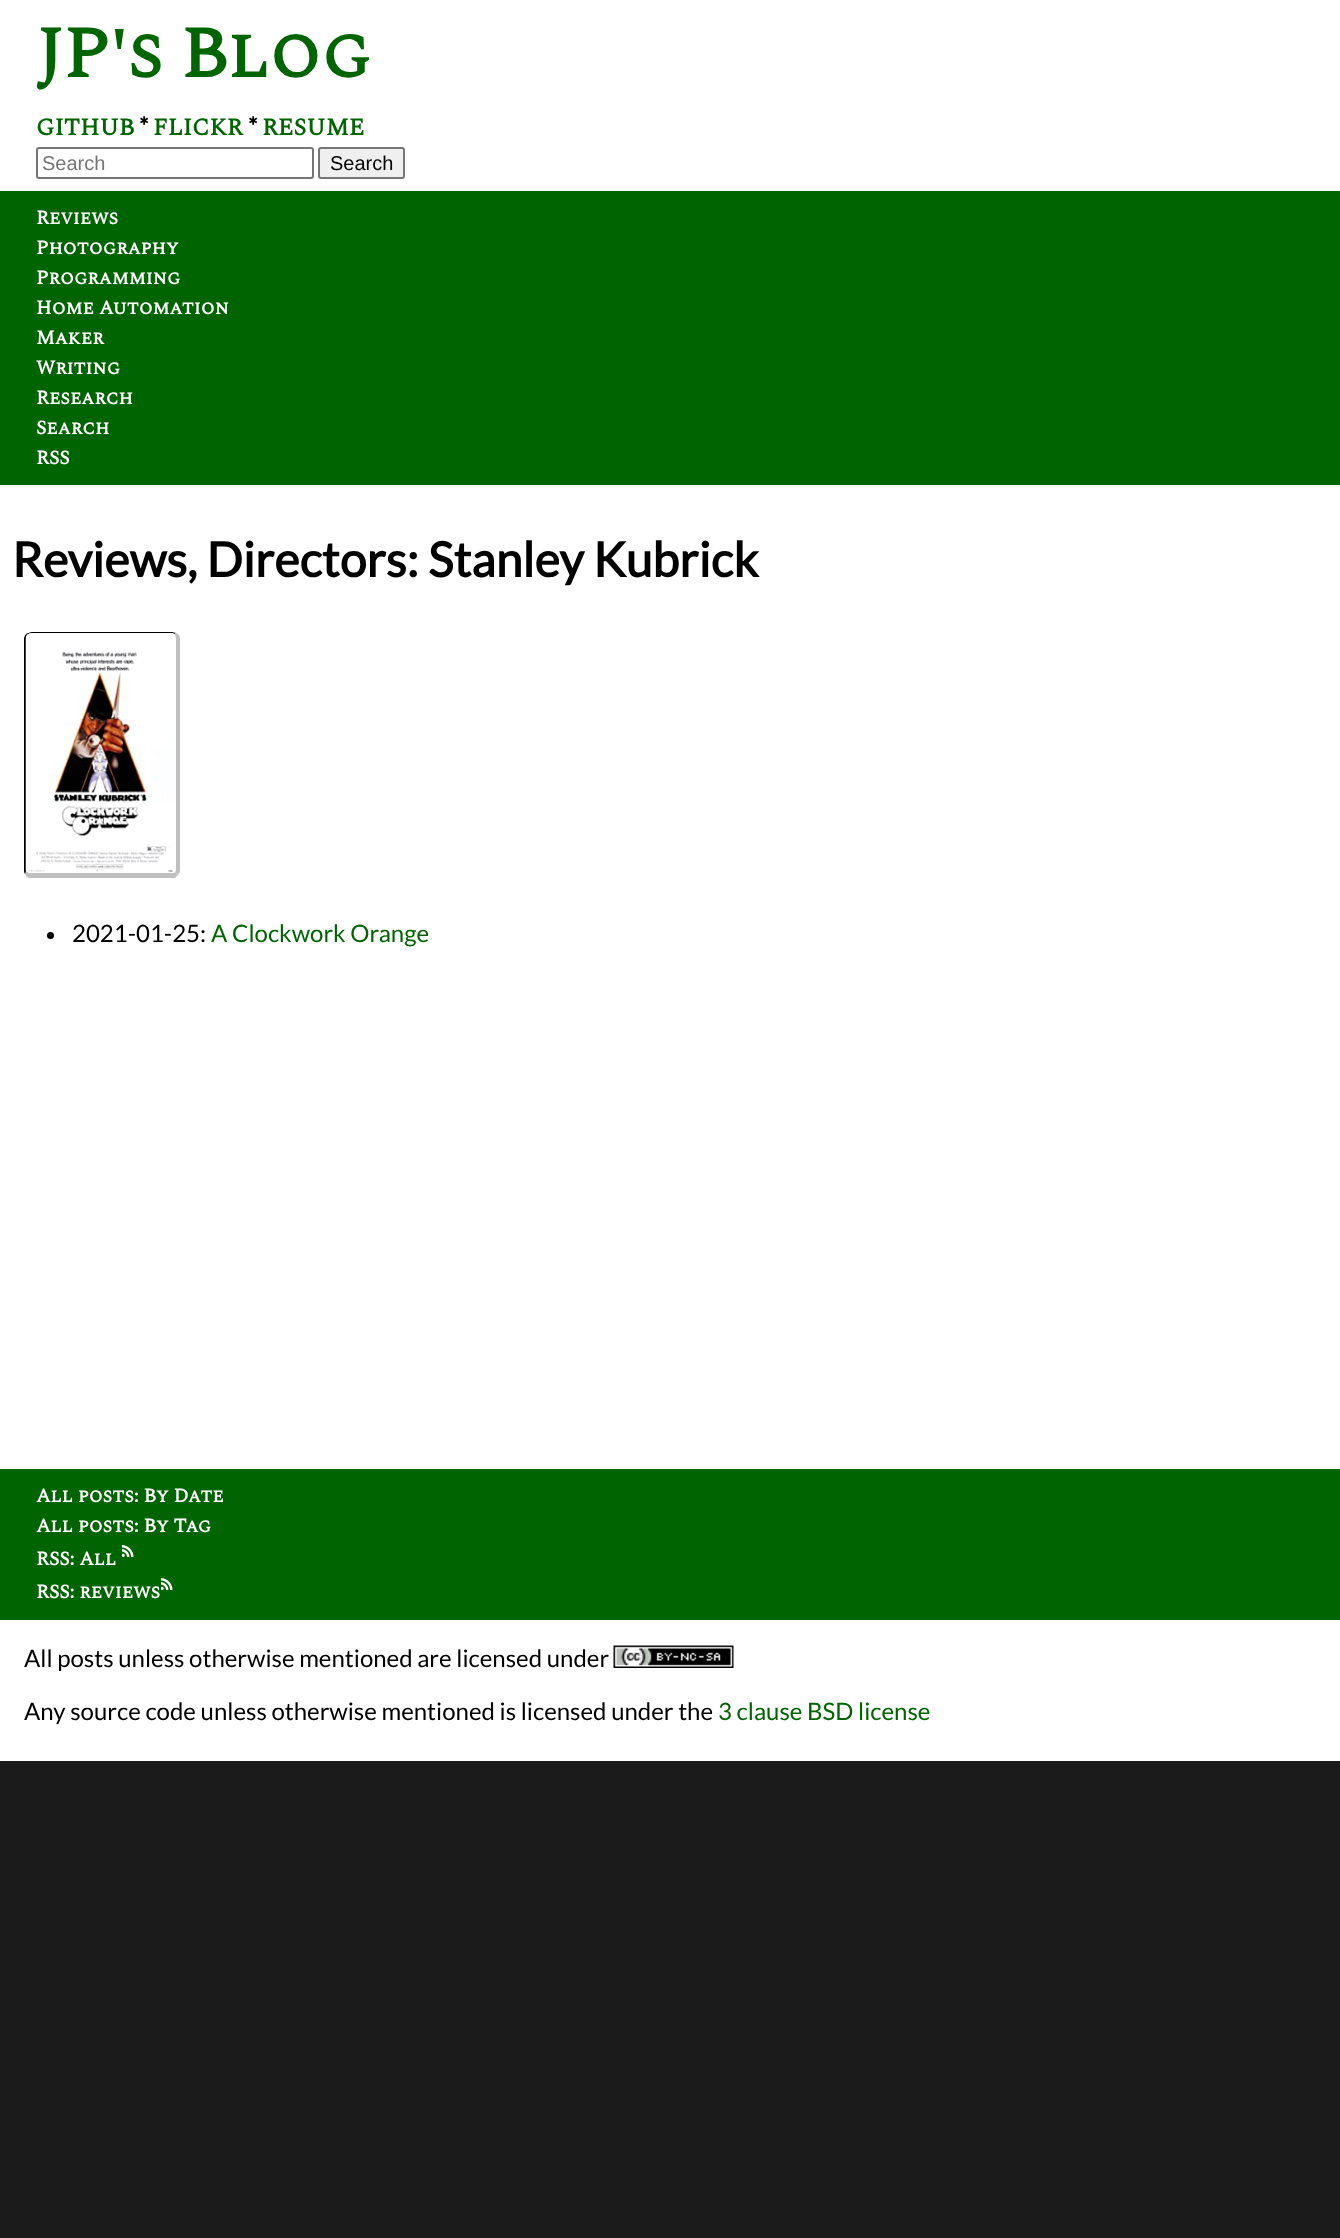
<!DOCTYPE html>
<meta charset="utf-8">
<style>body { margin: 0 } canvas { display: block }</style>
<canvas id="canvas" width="1340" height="2238"></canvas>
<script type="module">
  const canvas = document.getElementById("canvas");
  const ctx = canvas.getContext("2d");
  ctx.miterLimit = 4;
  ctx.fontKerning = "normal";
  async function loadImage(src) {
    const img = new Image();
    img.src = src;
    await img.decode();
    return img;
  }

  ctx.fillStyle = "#1b1b1b";
  ctx.fillRect(0, 0, 1340, 2238);
  ctx.fillStyle = "#ffffff";
  ctx.fillRect(0, 0, 1340, 191);
  ctx.font = "bold 72px Spectral SC";
  ctx.fillStyle = "#006400";
  ctx.fillText("JP's Blog", 36, 77);
  ctx.font = "bold 24px Spectral SC";
  ctx.fillText("GITHUB", 36, 135);
  ctx.font = "bold 24px Lato";
  ctx.fillStyle = "#000000";
  ctx.fillText("*", 139, 135);
  ctx.font = "bold 24px Spectral SC";
  ctx.fillStyle = "#006400";
  ctx.fillText("FLICKR", 153, 135);
  ctx.font = "bold 24px Lato";
  ctx.fillStyle = "#000000";
  ctx.fillText("*", 248, 135);
  ctx.font = "bold 24px Spectral SC";
  ctx.fillStyle = "#006400";
  ctx.fillText("RESUME", 262, 135);
  ctx.beginPath();
  ctx.roundRect(37, 148, 276, 30, 2);
  ctx.strokeStyle = "#767676";
  ctx.lineWidth = 2;
  ctx.stroke();
  ctx.font = "20px Liberation Sans";
  ctx.fillStyle = "#757575";
  ctx.fillText("Search", 42, 170);
  ctx.fillStyle = "#efefef";
  ctx.beginPath();
  ctx.roundRect(319, 148, 85, 30, 2);
  ctx.fill();
  ctx.stroke();
  ctx.fillStyle = "#000000";
  ctx.fillText("Search", 330, 170);
  ctx.fillStyle = "#006400";
  ctx.fillRect(0, 191, 1340, 294);
  ctx.font = "bold 19.5px Spectral SC";
  ctx.fillStyle = "#ffffff";
  ctx.fillText("Reviews", 36, 224);
  ctx.fillText("Photography", 36, 254);
  ctx.fillText("Programming", 36, 284);
  ctx.fillText("Home Automation", 36, 314);
  ctx.fillText("Maker", 36, 344);
  ctx.fillText("Writing", 36, 374);
  ctx.fillText("Research", 36, 404);
  ctx.fillText("Search", 36, 434);
  ctx.fillText("RSS", 36, 464);
  ctx.fillRect(0, 485, 1340, 984);
  ctx.font = "bold 48px Lato";
  ctx.fillStyle = "#000000";
  ctx.fillText("Reviews, Directors: Stanley Kubrick", 12, 577);
  ctx.beginPath();
  ctx.moveTo(32, 632);
  ctx.bezierCurveTo(30, 632, 28, 633, 26, 634);
  ctx.lineTo(27, 635);
  ctx.bezierCurveTo(28, 634, 30, 633, 32, 633);
  ctx.lineTo(172, 633);
  ctx.lineTo(174, 634);
  ctx.lineTo(176, 633);
  ctx.lineTo(172, 632);
  ctx.closePath();
  ctx.fill();
  ctx.fillStyle = "#c0c0c0";
  ctx.beginPath();
  ctx.moveTo(176, 633);
  ctx.bezierCurveTo(179, 634, 180, 636, 180, 639);
  ctx.lineTo(180, 870);
  ctx.bezierCurveTo(180, 872, 179, 874, 178, 875);
  ctx.lineTo(175, 872);
  ctx.lineTo(176, 870);
  ctx.lineTo(176, 639);
  ctx.bezierCurveTo(176, 637, 175, 635, 174, 634);
  ctx.closePath();
  ctx.fill();
  ctx.beginPath();
  ctx.moveTo(29, 878);
  ctx.bezierCurveTo(27, 877, 26, 876, 25, 874);
  ctx.lineTo(26, 871);
  ctx.bezierCurveTo(27, 872, 29, 873, 32, 873);
  ctx.lineTo(172, 873);
  ctx.lineTo(175, 872);
  ctx.lineTo(178, 875);
  ctx.lineTo(175, 878);
  ctx.closePath();
  ctx.fill();
  ctx.fillStyle = "#000000";
  ctx.beginPath();
  ctx.moveTo(24, 639);
  ctx.lineTo(24, 870);
  ctx.bezierCurveTo(24, 871, 24, 873, 25, 874);
  ctx.lineTo(26, 871);
  ctx.lineTo(26, 639);
  ctx.bezierCurveTo(26, 638, 26, 636, 27, 635);
  ctx.lineTo(26, 634);
  ctx.bezierCurveTo(25, 635, 24, 637, 24, 639);
  ctx.closePath();
  ctx.fill();
  ctx.drawImage(await loadImage("img1.png"), 25, 633, 151, 240);
  ctx.beginPath();
  ctx.arc(50.5, 935.5, 3.5, 0, Math.PI * 2);
  ctx.fill();
  ctx.font = "24px Lato";
  ctx.fillText("2021-01-25:", 72, 942);
  ctx.fillStyle = "#006400";
  ctx.fillText("A Clockwork Orange", 211, 942);
  ctx.fillStyle = "#ffffff";
  ctx.fillRect(0, 1620, 1340, 141);
  ctx.fillStyle = "#006400";
  ctx.fillRect(0, 1469, 1340, 151);
  ctx.font = "bold 19.5px Spectral SC";
  ctx.fillStyle = "#ffffff";
  ctx.fillText("All posts: By Date", 36, 1502);
  ctx.fillText("All posts: By Tag", 36, 1532);
  ctx.fillText("RSS: All", 36, 1565);
  ctx.drawImage(await loadImage("img2.png"), 122, 1545, 12, 12);
  ctx.fillText("RSS: reviews", 36, 1598);
  ctx.drawImage(await loadImage("img2.png"), 161, 1578, 12, 12);
  ctx.font = "24px Lato";
  ctx.fillStyle = "#000000";
  ctx.fillText("All posts unless otherwise mentioned are licensed under", 24, 1667);
  ctx.drawImage(await loadImage("img3.png"), 613, 1645, 121, 23);
  ctx.fillText("Any source code unless otherwise mentioned is licensed under the", 24, 1720);
  ctx.fillStyle = "#006400";
  ctx.fillText("3 clause BSD license", 718, 1720);
</script>
